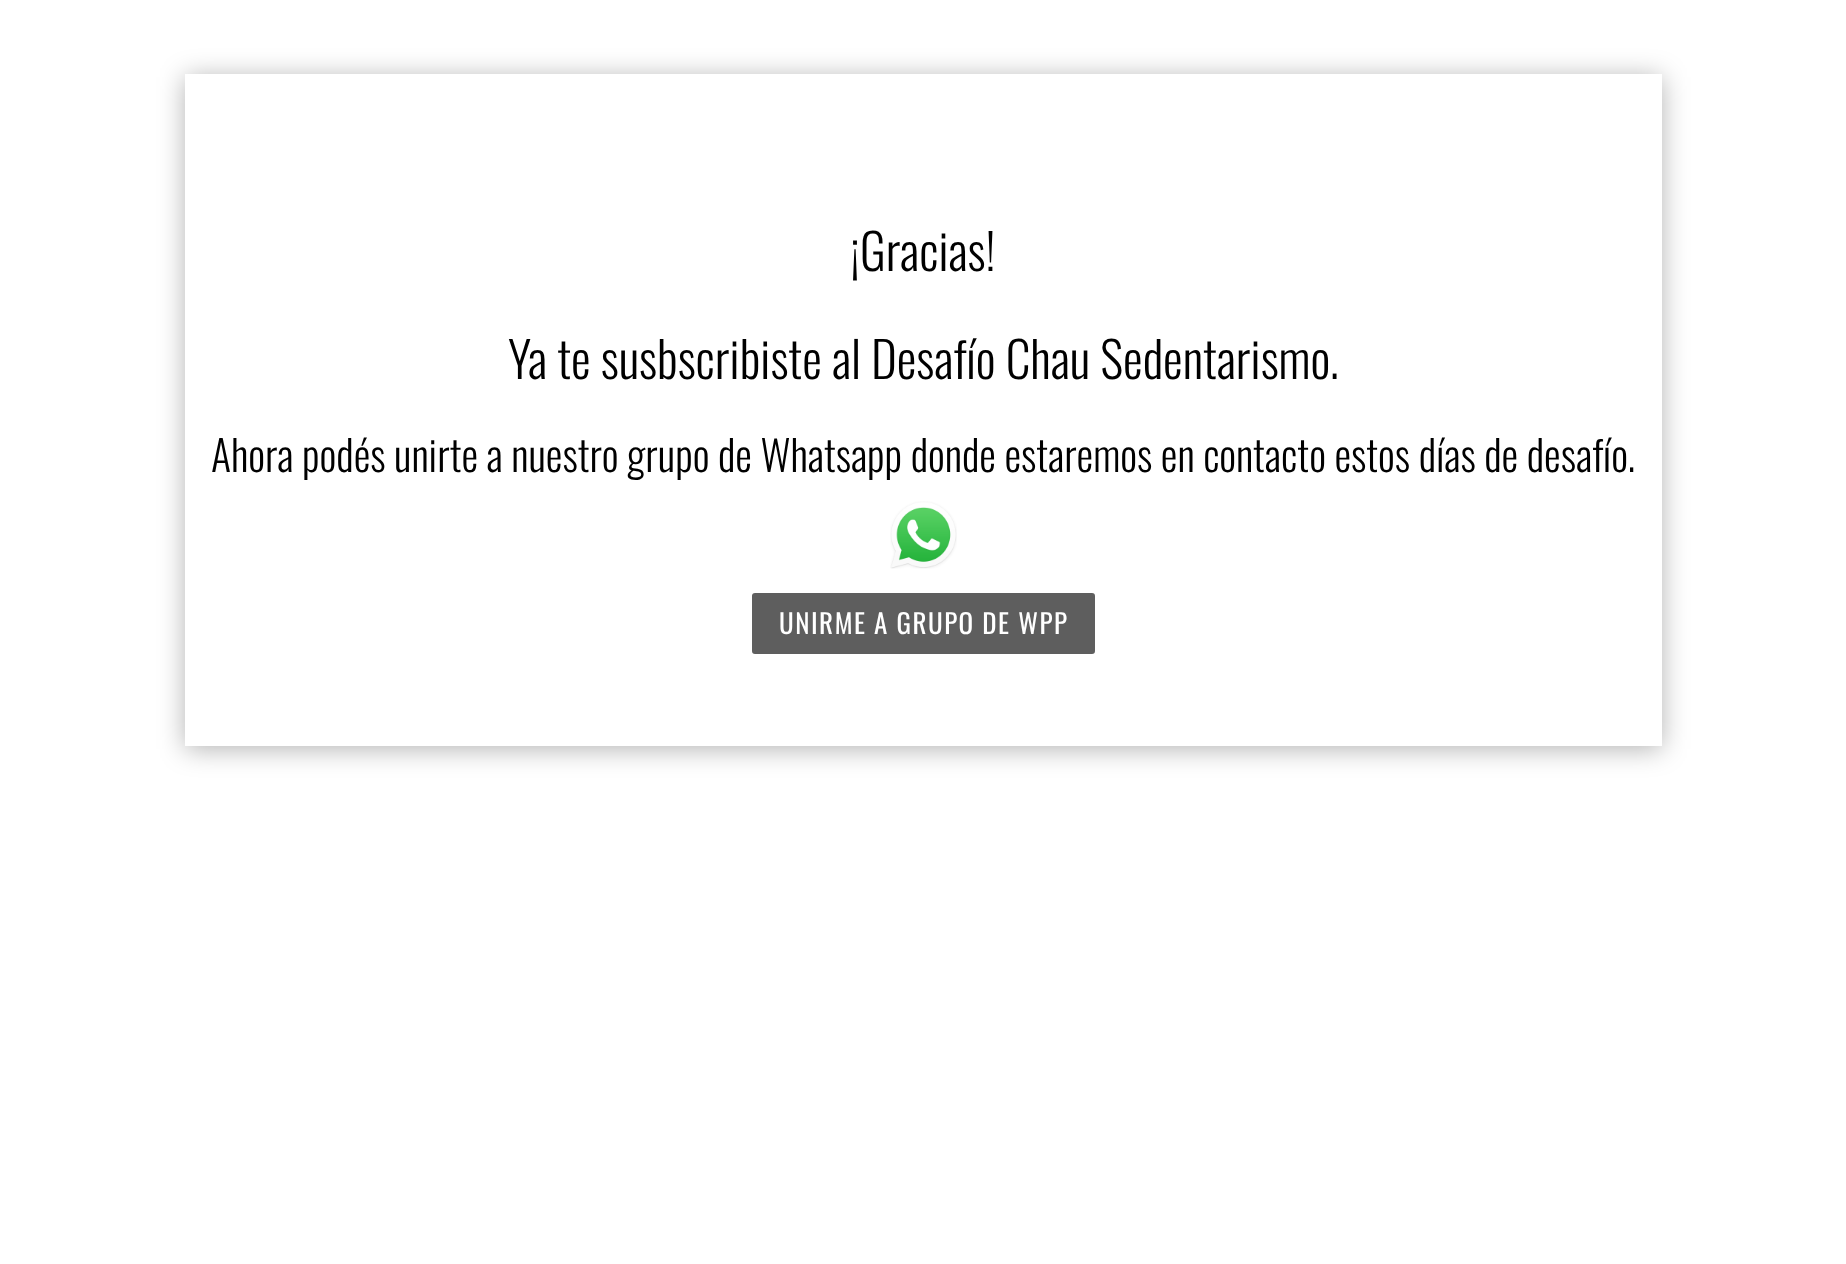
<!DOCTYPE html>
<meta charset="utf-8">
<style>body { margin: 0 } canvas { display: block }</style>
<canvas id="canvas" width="1846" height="1264"></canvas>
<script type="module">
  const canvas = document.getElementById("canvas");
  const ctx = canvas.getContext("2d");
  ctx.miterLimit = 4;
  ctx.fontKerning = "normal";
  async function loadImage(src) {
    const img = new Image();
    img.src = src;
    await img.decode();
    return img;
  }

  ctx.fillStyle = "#ffffff";
  ctx.fillRect(0, 0, 1846, 1264);
  ctx.save();
  ctx.beginPath();
  ctx.moveTo(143, 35);
  ctx.lineTo(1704, 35);
  ctx.lineTo(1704, 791);
  ctx.lineTo(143, 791);
  ctx.closePath();
  ctx.moveTo(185, 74);
  ctx.lineTo(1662, 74);
  ctx.lineTo(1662, 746);
  ctx.lineTo(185, 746);
  ctx.closePath();
  ctx.clip("evenodd");
  ctx.fillStyle = "rgba(0, 0, 0, 0.3)";
  ctx.filter = "blur(13.5px)";
  ctx.beginPath();
  ctx.rect(185, 77, 1477, 672);
  ctx.fill();
  ctx.filter = "none";
  ctx.restore();
  ctx.font = "300 49.5px Oswald";
  ctx.fillStyle = "#000000";
  ctx.fillText("¡Gracias!", 850, 271);
  ctx.fillText("Ya te susbscribiste al Desafío Chau Sedentarismo.", 508, 379);
  ctx.font = "300 42px Oswald";
  ctx.fillText("Ahora podés unirte a nuestro grupo de Whatsapp donde estaremos en contacto estos días de desafío.", 211, 472);
  ctx.drawImage(await loadImage("img1.png"), 890, 501, 67, 68);
  ctx.fillStyle = "#5e5e5e";
  ctx.beginPath();
  ctx.roundRect(750.5, 591.5, 346, 64, 4.5);
  ctx.fill();
  ctx.strokeStyle = "#ffffff";
  ctx.lineWidth = 3;
  ctx.stroke();
  ctx.letterSpacing = "1.5px";
  ctx.font = "27px Oswald";
  ctx.fillStyle = "#ffffff";
  ctx.fillText("UNIRME A GRUPO DE WPP", 779, 634);
</script>
